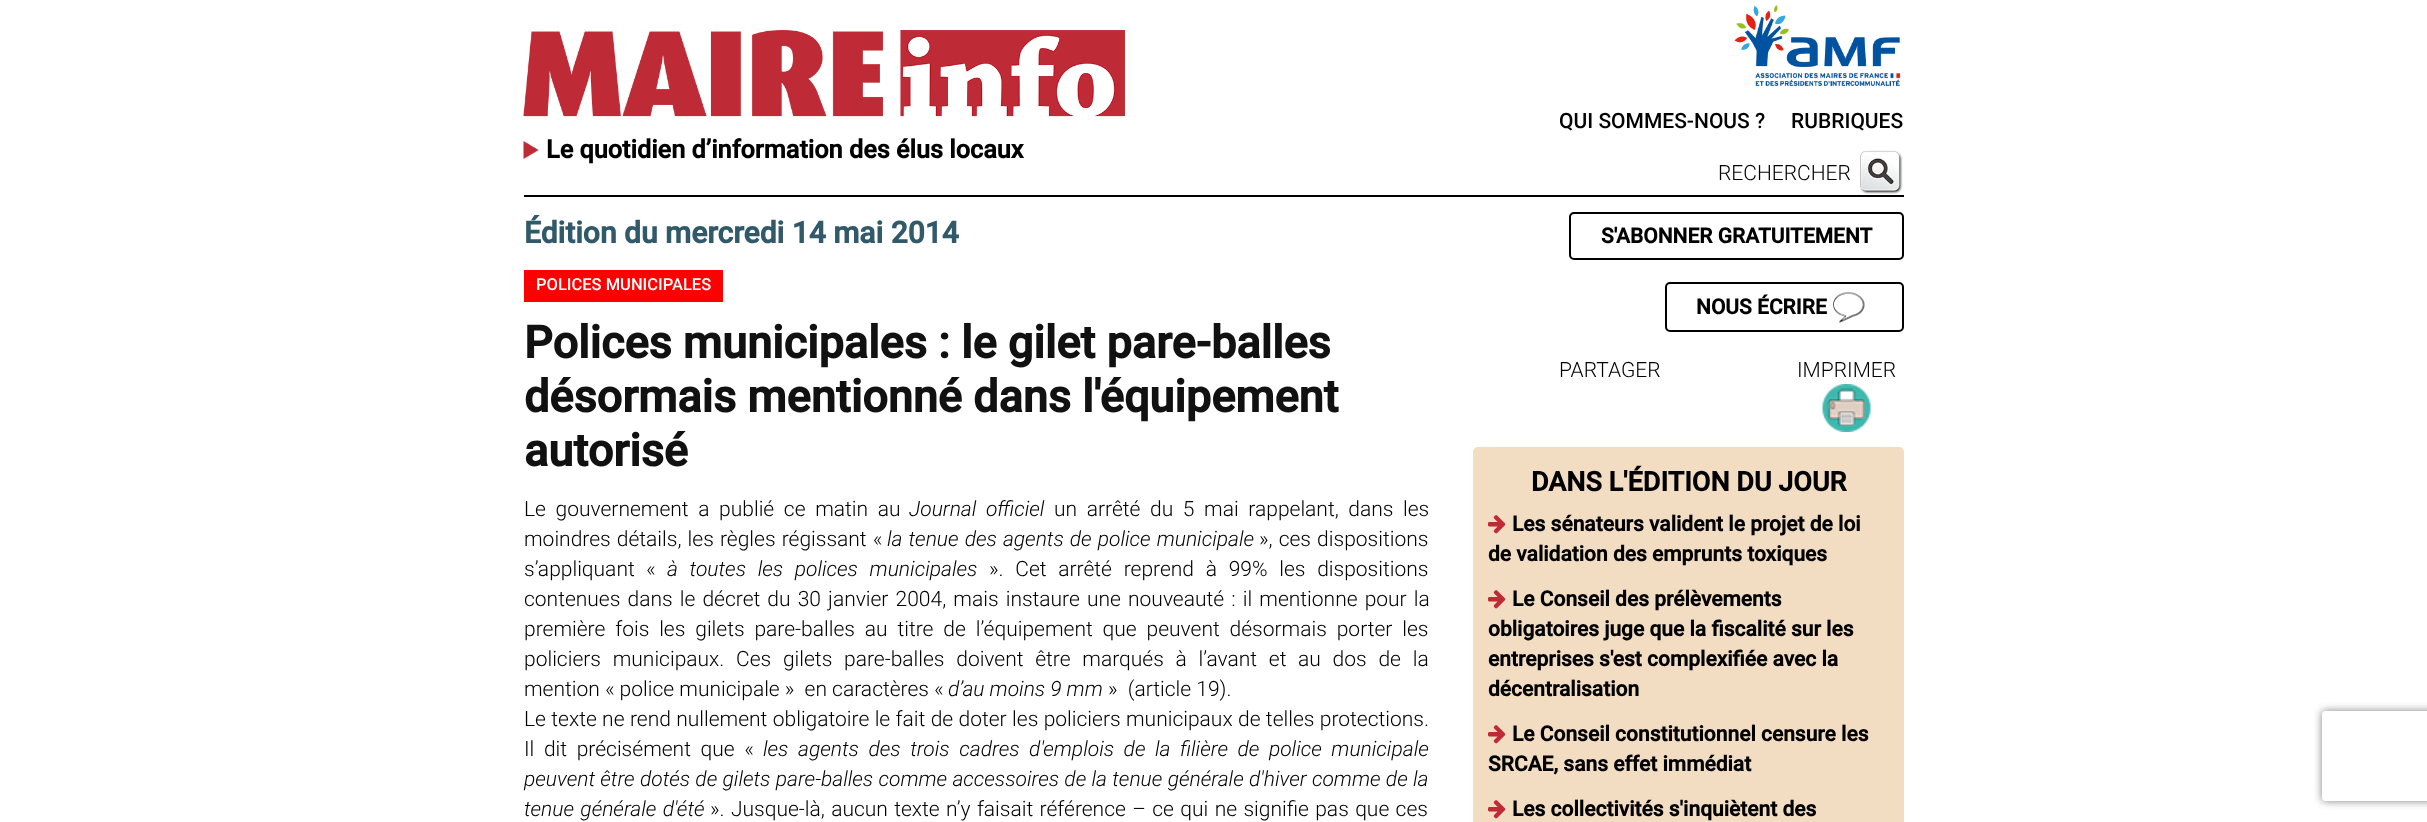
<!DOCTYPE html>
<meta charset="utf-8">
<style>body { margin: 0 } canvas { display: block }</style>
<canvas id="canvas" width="2427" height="822"></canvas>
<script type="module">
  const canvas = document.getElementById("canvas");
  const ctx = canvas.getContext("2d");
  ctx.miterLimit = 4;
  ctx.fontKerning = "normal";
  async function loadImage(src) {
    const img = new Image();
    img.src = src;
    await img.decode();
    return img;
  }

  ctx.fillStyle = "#ffffff";
  ctx.fillRect(0, 0, 2427, 822);
  ctx.drawImage(await loadImage("img1.png"), 523, 30, 602, 87);
  ctx.drawImage(await loadImage("img2.png"), 523, 141, 16, 18);
  ctx.font = "bold 25.25px Roboto";
  ctx.fillStyle = "#000000";
  ctx.fillText("Le quotidien d’information des élus locaux", 546, 158);
  ctx.drawImage(await loadImage("img3.png"), 1734, 5, 166, 82);
  ctx.font = "500 21px Roboto";
  ctx.fillText("QUI SOMMES-NOUS ?", 1559, 128);
  ctx.fillText("RUBRIQUES", 1791, 128);
  ctx.font = "300 21px Roboto";
  ctx.fillText("RECHERCHER", 1718, 180);
  ctx.drawImage(await loadImage("img4.png"), 1860, 150, 43, 44);
  ctx.fillRect(524, 195, 1380, 2);
  ctx.font = "bold 30px Roboto";
  ctx.fillStyle = "#30596a";
  ctx.fillText("Édition du mercredi 14 mai 2014", 524, 243);
  ctx.fillStyle = "#ff0000";
  ctx.fillRect(524, 270, 199, 32);
  ctx.font = "500 16.5px Roboto";
  ctx.fillStyle = "#ffffff";
  ctx.fillText("POLICES MUNICIPALES", 536, 290);
  ctx.font = "bold 45px Roboto";
  ctx.fillStyle = "#111111";
  ctx.fillText("Polices municipales : le gilet pare-balles", 524, 358);
  ctx.fillText("désormais mentionné dans l'équipement", 524, 412);
  ctx.fillText("autorisé", 524, 466);
  ctx.wordSpacing = "4.5px";
  ctx.font = "300 21px Roboto";
  ctx.fillStyle = "#000000";
  ctx.fillText("Le gouvernement a publié ce matin au", 524, 516);
  ctx.font = "italic 300 21px Roboto";
  ctx.fillText("Journal officiel", 909, 516);
  ctx.font = "300 21px Roboto";
  ctx.fillText("un arrêté du 5 mai rappelant, dans les", 1054, 516);
  ctx.wordSpacing = "1px";
  ctx.fillText("moindres détails, les règles régissant «", 524, 546);
  ctx.font = "italic 300 21px Roboto";
  ctx.fillText("la tenue des agents de police municipale", 887, 546);
  ctx.font = "300 21px Roboto";
  ctx.fillText("», ces dispositions", 1259, 546);
  ctx.wordSpacing = "0px";
  ctx.fillText("s’appliquant", 524, 576);
  ctx.fillText("«", 646, 576);
  ctx.wordSpacing = "6.6px";
  ctx.font = "italic 300 21px Roboto";
  ctx.fillText("à toutes les polices municipales", 667, 576);
  ctx.font = "300 21px Roboto";
  ctx.fillText("». Cet arrêté reprend à 99% les dispositions", 989, 576);
  ctx.wordSpacing = "2px";
  ctx.fillText("contenues dans le décret du 30 janvier 2004, mais instaure une nouveauté : il mentionne pour la", 524, 606);
  ctx.wordSpacing = "4.75px";
  ctx.fillText("première fois les gilets pare-balles au titre de l’équipement que peuvent désormais porter les", 524, 636);
  ctx.wordSpacing = "6.6px";
  ctx.fillText("policiers municipaux. Ces gilets pare-balles doivent être marqués à l’avant et au dos de la", 524, 666);
  ctx.wordSpacing = "0px";
  ctx.fillText("mention « police municipale »  en caractères «", 524, 696);
  ctx.font = "italic 300 21px Roboto";
  ctx.fillText("d’au moins 9 mm", 948, 696);
  ctx.font = "300 21px Roboto";
  ctx.fillText("»  (article 19).", 1108, 696);
  ctx.wordSpacing = "0.25px";
  ctx.fillText("Le texte ne rend nullement obligatoire le fait de doter les policiers municipaux de telles protections.", 524, 726);
  ctx.wordSpacing = "4.5px";
  ctx.fillText("Il dit précisément que «", 524, 756);
  ctx.font = "italic 300 21px Roboto";
  ctx.fillText("les agents des trois cadres d'emplois de la filière de police municipale", 763, 756);
  ctx.wordSpacing = "0.25px";
  ctx.fillText("peuvent être dotés de gilets pare-balles comme accessoires de la tenue générale d'hiver comme de la", 524, 786);
  ctx.wordSpacing = "1.25px";
  ctx.fillText("tenue générale d'été", 524, 816);
  ctx.font = "300 21px Roboto";
  ctx.fillText("». Jusque-là, aucun texte n’y faisait référence – ce qui ne signifie pas que ces", 710, 816);
  ctx.beginPath();
  ctx.roundRect(1570, 213, 333, 46, 4);
  ctx.strokeStyle = "#000000";
  ctx.lineWidth = 2;
  ctx.stroke();
  ctx.wordSpacing = "0px";
  ctx.font = "bold 21px Roboto";
  ctx.fillText("S'ABONNER GRATUITEMENT", 1601, 243);
  ctx.beginPath();
  ctx.roundRect(1666, 283, 237, 48, 4);
  ctx.stroke();
  ctx.fillText("NOUS ÉCRIRE", 1696, 314);
  ctx.drawImage(await loadImage("img5.png"), 1833, 292, 32, 31);
  ctx.font = "300 21px Roboto";
  ctx.fillText("PARTAGER", 1559, 377);
  ctx.fillText("IMPRIMER", 1797, 377);
  ctx.drawImage(await loadImage("img6.png"), 1822, 384, 49, 48);
  ctx.fillStyle = "#f2ddc3";
  ctx.beginPath();
  ctx.roundRect(1473, 447, 431, 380, 5);
  ctx.fill();
  ctx.font = "bold 27px Roboto";
  ctx.fillStyle = "#000000";
  ctx.fillText("DANS L'ÉDITION DU JOUR", 1531, 491);
  ctx.drawImage(await loadImage("img7.png"), 1488, 515, 18, 19);
  ctx.font = "bold 21px Roboto";
  ctx.fillText("Les sénateurs valident le projet de loi", 1512, 531);
  ctx.fillText("de validation des emprunts toxiques", 1488, 561);
  ctx.drawImage(await loadImage("img7.png"), 1488, 590, 18, 19);
  ctx.fillText("Le Conseil des prélèvements", 1512, 606);
  ctx.fillText("obligatoires juge que la fiscalité sur les", 1488, 636);
  ctx.fillText("entreprises s'est complexifiée avec la", 1488, 666);
  ctx.fillText("décentralisation", 1488, 696);
  ctx.drawImage(await loadImage("img7.png"), 1488, 725, 18, 19);
  ctx.fillText("Le Conseil constitutionnel censure les", 1512, 741);
  ctx.fillText("SRCAE, sans effet immédiat", 1488, 771);
  ctx.drawImage(await loadImage("img7.png"), 1488, 800, 18, 19);
  ctx.fillText("Les collectivités s'inquiètent des", 1512, 816);
  ctx.save();
  ctx.beginPath();
  ctx.moveTo(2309, 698);
  ctx.lineTo(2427, 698);
  ctx.lineTo(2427, 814);
  ctx.lineTo(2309, 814);
  ctx.closePath();
  ctx.moveTo(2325, 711);
  ctx.lineTo(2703, 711);
  ctx.bezierCurveTo(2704.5, 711, 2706, 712.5, 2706, 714);
  ctx.lineTo(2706, 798);
  ctx.bezierCurveTo(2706, 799.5, 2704.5, 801, 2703, 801);
  ctx.lineTo(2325, 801);
  ctx.bezierCurveTo(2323.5, 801, 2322, 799.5, 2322, 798);
  ctx.lineTo(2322, 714);
  ctx.bezierCurveTo(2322, 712.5, 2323.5, 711, 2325, 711);
  ctx.closePath();
  ctx.clip("evenodd");
  ctx.fillStyle = "#808080";
  ctx.filter = "blur(4px)";
  ctx.beginPath();
  ctx.roundRect(2322, 711, 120, 90, 3);
  ctx.fill();
  ctx.filter = "none";
  ctx.restore();
</script>
